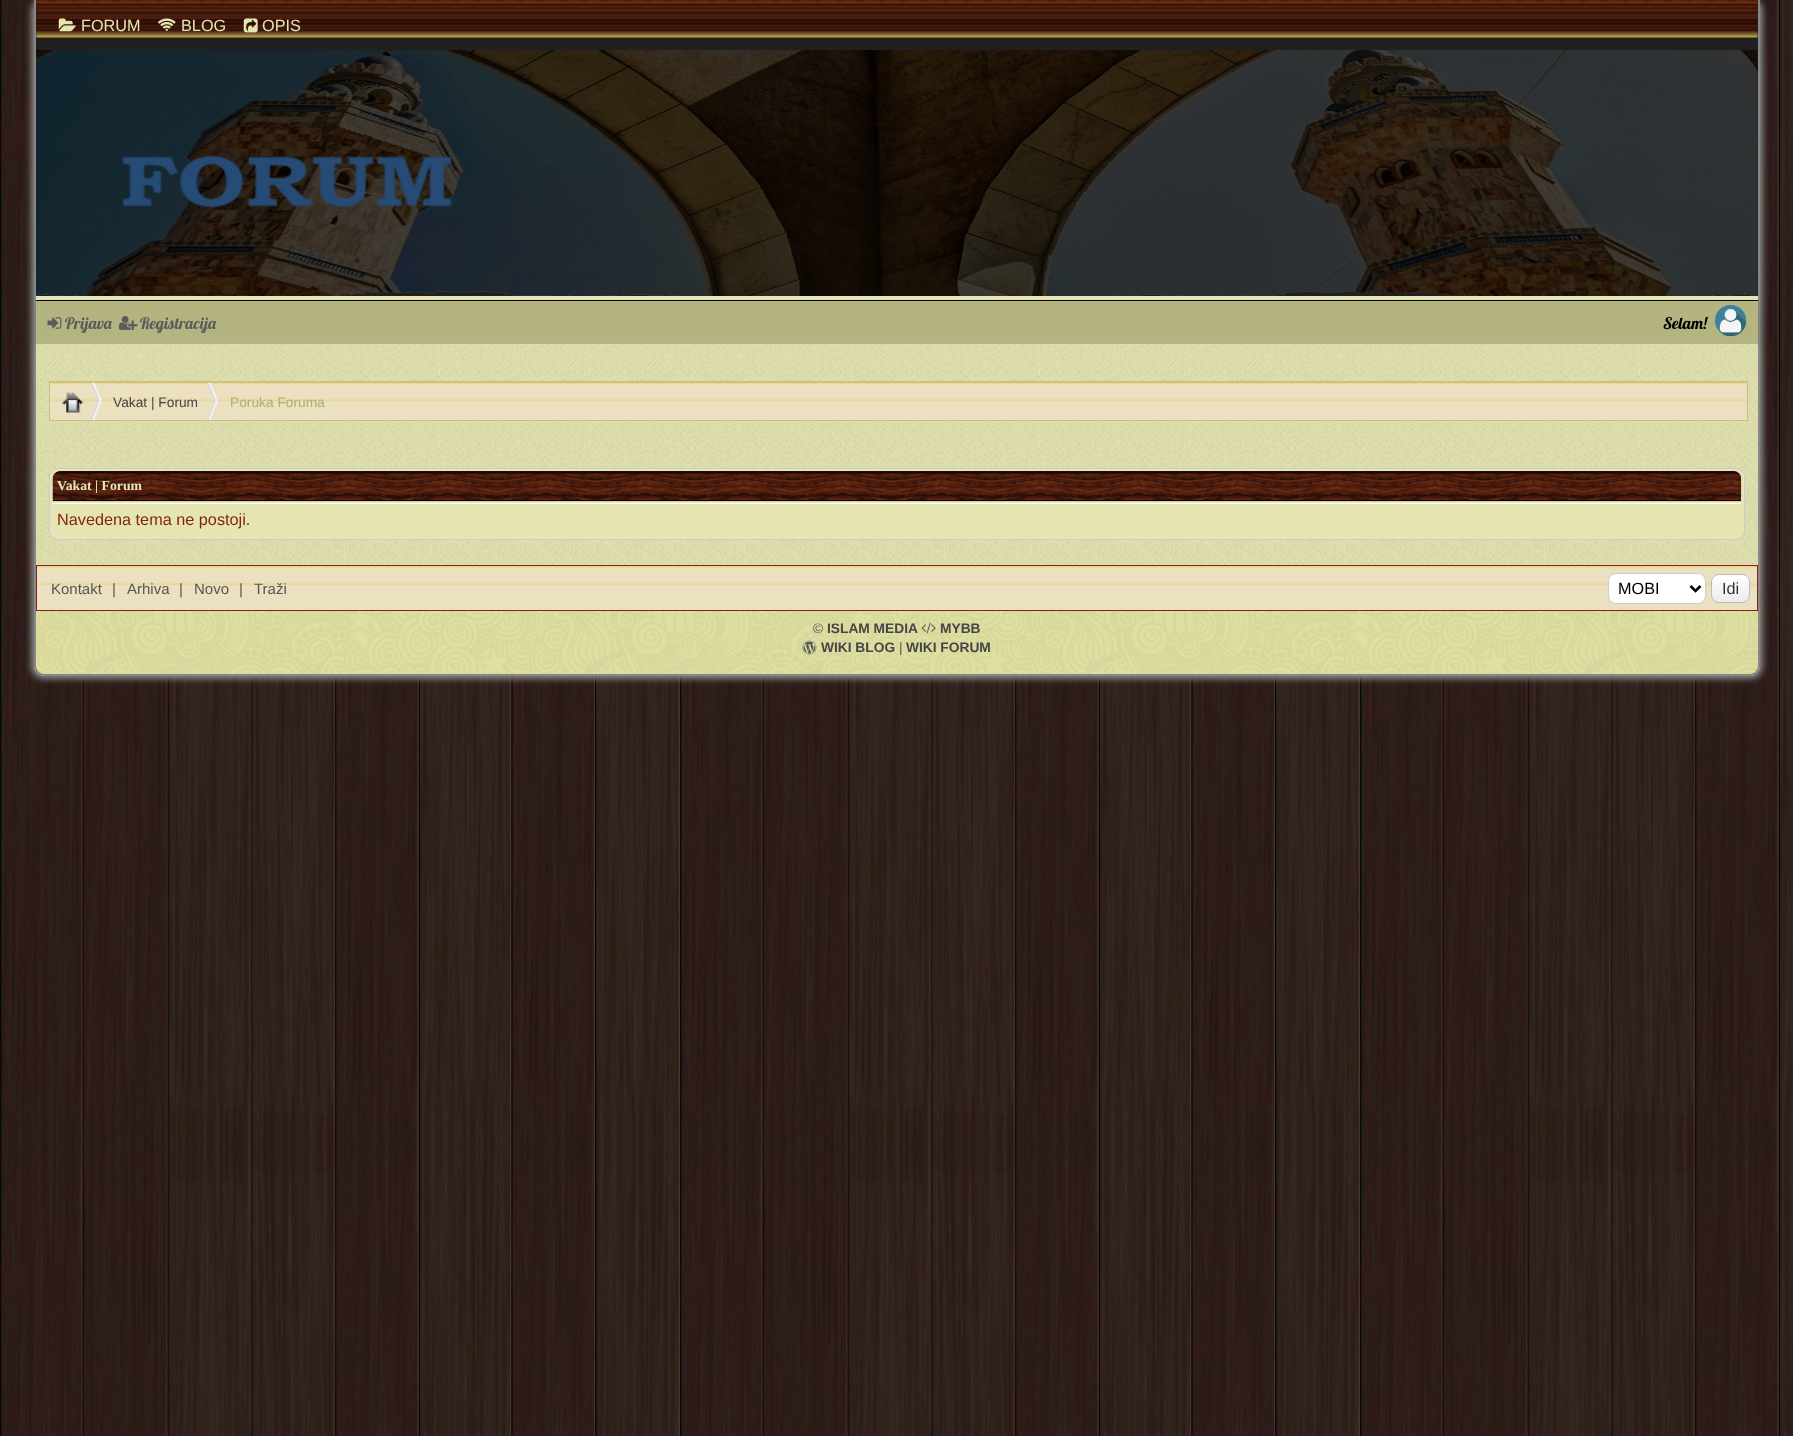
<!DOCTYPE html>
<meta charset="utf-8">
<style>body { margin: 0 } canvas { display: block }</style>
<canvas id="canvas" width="1793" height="1436"></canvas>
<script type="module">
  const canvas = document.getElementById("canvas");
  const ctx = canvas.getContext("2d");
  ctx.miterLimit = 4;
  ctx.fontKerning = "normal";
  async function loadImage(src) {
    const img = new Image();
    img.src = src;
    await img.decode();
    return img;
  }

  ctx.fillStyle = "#ffffff";
  ctx.fillRect(0, 0, 1793, 1436);
  ctx.drawImage(await loadImage("img1.png"), 0, 0, 1793, 1436);
  ctx.fillStyle = "#888888";
  ctx.filter = "blur(3px)";
  ctx.beginPath();
  ctx.roundRect(31, -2, 1732, 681, 13);
  ctx.fill();
  ctx.filter = "none";
  ctx.fillStyle = "#dfdf9f";
  ctx.beginPath();
  ctx.roundRect(34, 0, 1726, 676, [0, 0, 10, 10]);
  ctx.fill();
  ctx.drawImage(await loadImage("img2.png"), 34, 566, 1726, 110);
  ctx.fillStyle = "#878787";
  ctx.beginPath();
  ctx.moveTo(34, 0);
  ctx.lineTo(1760, 0);
  ctx.lineTo(1760, 666);
  ctx.bezierCurveTo(1760, 672, 1756, 676, 1750, 676);
  ctx.lineTo(44, 676);
  ctx.bezierCurveTo(38, 676, 34, 672, 34, 666);
  ctx.closePath();
  ctx.moveTo(36, 0);
  ctx.lineTo(1758, 0);
  ctx.lineTo(1758, 666);
  ctx.bezierCurveTo(1758, 670, 1754, 674, 1750, 674);
  ctx.lineTo(44, 674);
  ctx.bezierCurveTo(40, 674, 36, 670, 36, 666);
  ctx.closePath();
  ctx.fill("evenodd");
  ctx.fillStyle = "#202020";
  ctx.fillRect(36, 0, 1722, 296);
  ctx.drawImage(await loadImage("img3.png"), 36, 0, 1722, 38);
  ctx.drawImage(await loadImage("img4.png"), 58, 18, 18, 14);
  ctx.font = "16.25px Liberation Sans";
  ctx.fillStyle = "#e5e5b2";
  ctx.fillText("FORUM", 81, 31);
  ctx.drawImage(await loadImage("img5.png"), 157, 18, 19, 14);
  ctx.fillText("BLOG", 181, 31);
  ctx.drawImage(await loadImage("img6.png"), 243, 18, 15, 15);
  ctx.fillText("OPIS", 262, 31);
  ctx.drawImage(await loadImage("img7.png"), 36, 50, 1722, 246);
  ctx.fillStyle = "#e5e5b7";
  ctx.fillRect(36, 296, 1722, 4);
  ctx.fillStyle = "#000000";
  ctx.fillRect(36, 300, 1722, 1);
  ctx.drawImage(await loadImage("img8.png"), 122, 155, 330, 53);
  ctx.fillStyle = "rgba(0, 0, 0, 0.1)";
  ctx.filter = "blur(3px)";
  ctx.beginPath();
  ctx.rect(36, 304, 1722, 42);
  ctx.fill();
  ctx.filter = "none";
  ctx.fillStyle = "#b4b480";
  ctx.fillRect(36, 301, 1722, 43);
  ctx.drawImage(await loadImage("img9.png"), 47, 317, 15, 12);
  ctx.font = "16.25px Lobster";
  ctx.fillStyle = "#5b5b5b";
  ctx.fillText("Prijava", 65, 329);
  ctx.drawImage(await loadImage("img10.png"), 118, 316, 20, 14);
  ctx.fillText("Registracija", 140, 329);
  ctx.fillStyle = "#000000";
  ctx.fillText("Selam!", 1663, 329);
  ctx.drawImage(await loadImage("img11.png"), 1715, 305, 32, 32);
  ctx.fillStyle = "#dfdf9f";
  ctx.fillRect(36, 344, 1722, 6);
  ctx.drawImage(await loadImage("img12.png"), 36, 343, 1722, 222);
  ctx.fillStyle = "#b4b480";
  ctx.fillRect(50, 382, 1697, 1);
  ctx.drawImage(await loadImage("img13.png"), 48, 382, 1700, 40);
  ctx.strokeStyle = "#c3c37e";
  ctx.strokeRect(49.5, 381.5, 1698, 39);
  ctx.drawImage(await loadImage("img14.png"), 91, 382, 11, 38);
  ctx.drawImage(await loadImage("img15.png"), 62, 392, 21, 21);
  ctx.drawImage(await loadImage("img16.png"), 207, 382, 11, 38);
  ctx.font = "13.75px Liberation Sans";
  ctx.fillStyle = "#454545";
  ctx.fillText("Vakat | Forum", 113, 407);
  ctx.fillStyle = "#afaf71";
  ctx.fillText("Poruka Foruma", 230, 407);
  ctx.fillStyle = "#e5e5b7";
  ctx.beginPath();
  ctx.roundRect(49.5, 468.5, 1695, 71, 8.5);
  ctx.fill();
  ctx.strokeStyle = "#cccccc";
  ctx.stroke();
  ctx.fillStyle = "#2b0c07";
  ctx.beginPath();
  ctx.roundRect(53, 471, 1688, 30, [8, 8, 0, 0]);
  ctx.fill();
  ctx.drawImage(await loadImage("img17.png"), 52, 471, 1690, 31);
  ctx.fillStyle = "#000000";
  ctx.fillRect(53, 500, 1688, 1);
  ctx.font = "bold 13.75px Liberation Serif";
  ctx.fillStyle = "#e5e5b2";
  ctx.fillText("Vakat | Forum", 57, 490);
  ctx.beginPath();
  ctx.roundRect(53, 503, 1688, 33, [0, 0, 8, 8]);
  ctx.fill();
  ctx.fillStyle = "#ffffff";
  ctx.fillRect(53, 503, 1688, 1);
  ctx.font = "16.25px Liberation Sans";
  ctx.fillStyle = "#872218";
  ctx.fillText("Navedena tema ne postoji.", 57, 525);
  ctx.drawImage(await loadImage("img18.png"), 37, 566, 1720, 44);
  ctx.strokeStyle = "#872218";
  ctx.strokeRect(36.5, 565.5, 1721, 45);
  ctx.font = "15px Liberation Sans";
  ctx.fillStyle = "#555555";
  ctx.fillText("Kontakt", 51, 594);
  ctx.fillText("|", 112, 594);
  ctx.fillText("Arhiva", 127, 594);
  ctx.fillText("|", 179, 594);
  ctx.fillText("Novo", 194, 594);
  ctx.fillText("|", 239, 594);
  ctx.fillText("Traži", 254, 594);
  ctx.fillStyle = "#ffffff";
  ctx.beginPath();
  ctx.roundRect(1608.5, 573.5, 97, 30, 7.5);
  ctx.fill();
  ctx.strokeStyle = "#cccccc";
  ctx.stroke();
  ctx.beginPath();
  ctx.moveTo(1690.5, 586);
  ctx.lineTo(1695.5, 591);
  ctx.lineTo(1700.5, 586);
  ctx.strokeStyle = "#000000";
  ctx.lineWidth = 2.5;
  ctx.stroke();
  ctx.font = "16.25px Liberation Sans";
  ctx.fillStyle = "#000000";
  ctx.fillText("MOBI", 1618, 594);
  ctx.drawImage(await loadImage("img19.png"), 1711, 575, 39, 27);
  ctx.beginPath();
  ctx.roundRect(1711.5, 574.5, 38, 28, 7.5);
  ctx.strokeStyle = "#bbbbbb";
  ctx.lineWidth = 1;
  ctx.stroke();
  ctx.fillStyle = "#333333";
  ctx.fillText("Idi", 1722, 594);
  ctx.font = "13.75px Liberation Sans";
  ctx.fillStyle = "#555555";
  ctx.fillText("©", 813, 633);
  ctx.font = "bold 13.75px Liberation Sans";
  ctx.fillStyle = "#454545";
  ctx.fillText("ISLAM MEDIA", 827, 633);
  ctx.drawImage(await loadImage("img20.png"), 921, 622, 15, 12);
  ctx.fillText("MYBB", 940, 633);
  ctx.drawImage(await loadImage("img21.png"), 802, 640, 15, 15);
  ctx.fillText("WIKI BLOG", 821, 652);
  ctx.font = "13.75px Liberation Sans";
  ctx.fillStyle = "#555555";
  ctx.fillText("|", 899, 652);
  ctx.font = "bold 13.75px Liberation Sans";
  ctx.fillStyle = "#454545";
  ctx.fillText("WIKI FORUM", 906, 652);
</script>
